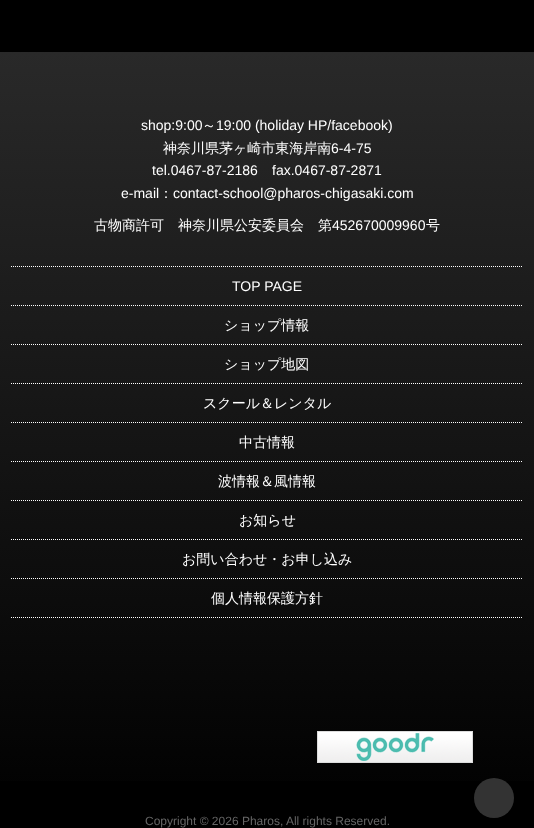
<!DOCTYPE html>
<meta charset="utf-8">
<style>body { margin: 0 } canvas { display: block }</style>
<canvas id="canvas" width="534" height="828"></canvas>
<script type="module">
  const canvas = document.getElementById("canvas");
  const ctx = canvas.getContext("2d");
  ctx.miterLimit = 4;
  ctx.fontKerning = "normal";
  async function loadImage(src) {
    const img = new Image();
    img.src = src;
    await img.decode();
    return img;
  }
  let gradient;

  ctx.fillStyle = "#000000";
  ctx.fillRect(0, 0, 534, 828);
  gradient = ctx.createLinearGradient(267, 52, 267, 828);
  gradient.addColorStop(0, "#292929");
  gradient.addColorStop(1, "#000000");
  ctx.fillStyle = gradient;
  ctx.fillRect(0, 52, 534, 729);
  ctx.font = "14px Liberation Sans";
  ctx.fillStyle = "#ffffff";
  ctx.fillText("shop:9:00", 141, 130);
  ctx.font = "500 14px WenQuanYi Zen Hei";
  ctx.fillText("～", 202, 130);
  ctx.font = "14px Liberation Sans";
  ctx.fillText("19:00 (holiday HP/facebook)", 216, 130);
  ctx.font = "500 14px WenQuanYi Zen Hei";
  ctx.fillText("神奈川県茅ヶ崎市東海岸南", 163, 153);
  ctx.font = "14px Liberation Sans";
  ctx.fillText("6-4-75", 331, 153);
  ctx.fillText("tel.0467-87-2186", 152, 175);
  ctx.fillText("fax.0467-87-2871", 272, 175);
  ctx.fillText("e-mail", 121, 198);
  ctx.font = "500 14px WenQuanYi Zen Hei";
  ctx.fillText("：", 159, 198);
  ctx.font = "14px Liberation Sans";
  ctx.fillText("contact-school@pharos-chigasaki.com", 173, 198);
  ctx.font = "500 14px WenQuanYi Zen Hei";
  ctx.fillText("古物商許可　神奈川県公安委員会　第", 94, 230);
  ctx.font = "14px Liberation Sans";
  ctx.fillText("452670009960", 332, 230);
  ctx.font = "500 14px WenQuanYi Zen Hei";
  ctx.fillText("号", 426, 230);
  ctx.beginPath();
  ctx.moveTo(11, 266.5);
  ctx.lineTo(523, 266.5);
  ctx.strokeStyle = "#ffffff";
  ctx.setLineDash([1, 1]);
  ctx.stroke();
  ctx.beginPath();
  ctx.moveTo(11, 305.5);
  ctx.lineTo(523, 305.5);
  ctx.stroke();
  ctx.font = "14px Liberation Sans";
  ctx.fillText("TOP PAGE", 232, 291);
  ctx.beginPath();
  ctx.moveTo(11, 344.5);
  ctx.lineTo(523, 344.5);
  ctx.stroke();
  ctx.font = "500 14px WenQuanYi Zen Hei";
  ctx.fillText("ショップ情報", 224, 330);
  ctx.beginPath();
  ctx.moveTo(11, 383.5);
  ctx.lineTo(523, 383.5);
  ctx.stroke();
  ctx.fillText("ショップ地図", 224, 369);
  ctx.beginPath();
  ctx.moveTo(11, 422.5);
  ctx.lineTo(523, 422.5);
  ctx.stroke();
  ctx.fillText("スクール＆レンタル", 203, 408);
  ctx.beginPath();
  ctx.moveTo(11, 461.5);
  ctx.lineTo(523, 461.5);
  ctx.stroke();
  ctx.fillText("中古情報", 239, 447);
  ctx.beginPath();
  ctx.moveTo(11, 500.5);
  ctx.lineTo(523, 500.5);
  ctx.stroke();
  ctx.fillText("波情報＆風情報", 218, 486);
  ctx.beginPath();
  ctx.moveTo(11, 539.5);
  ctx.lineTo(523, 539.5);
  ctx.stroke();
  ctx.fillText("お知らせ", 239, 525);
  ctx.beginPath();
  ctx.moveTo(11, 578.5);
  ctx.lineTo(523, 578.5);
  ctx.stroke();
  ctx.fillText("お問い合わせ・お申し込み", 182, 564);
  ctx.beginPath();
  ctx.moveTo(11, 617.5);
  ctx.lineTo(523, 617.5);
  ctx.stroke();
  ctx.fillText("個人情報保護方針", 211, 603);
  ctx.drawImage(await loadImage("img1.png"), 317, 731, 156, 32);
  ctx.font = "12px Liberation Sans";
  ctx.fillStyle = "#666666";
  ctx.fillText("Copyright © 2026 Pharos, All rights Reserved.", 145, 825);
  ctx.fillStyle = "#333333";
  ctx.beginPath();
  ctx.arc(494, 798, 20, 0, Math.PI * 2);
  ctx.fill();
</script>
